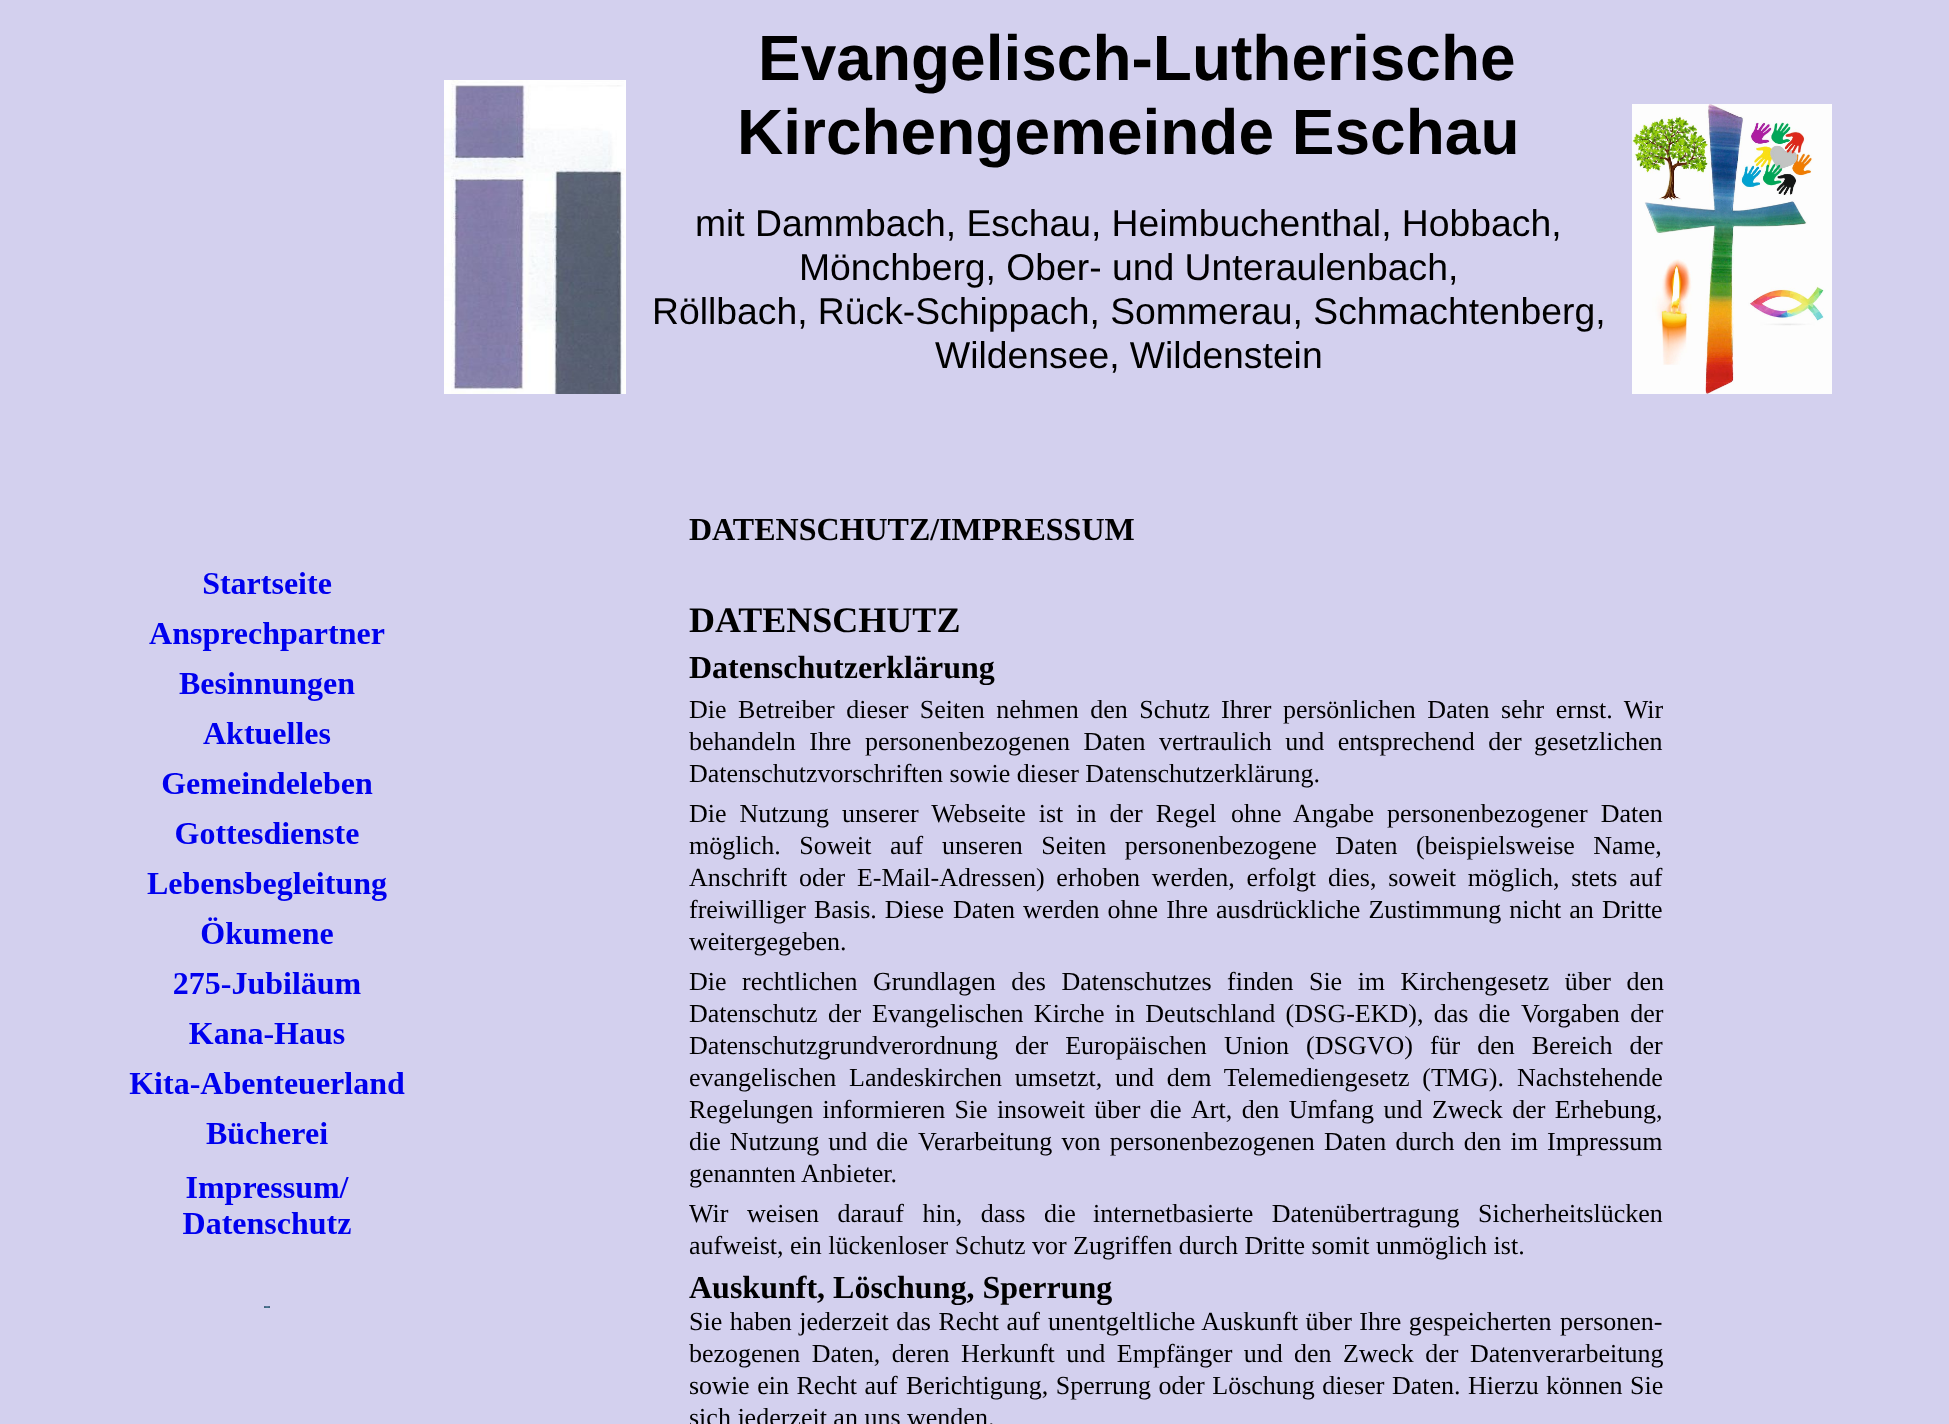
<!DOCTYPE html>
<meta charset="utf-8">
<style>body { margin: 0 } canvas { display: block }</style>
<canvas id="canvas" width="1949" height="1424"></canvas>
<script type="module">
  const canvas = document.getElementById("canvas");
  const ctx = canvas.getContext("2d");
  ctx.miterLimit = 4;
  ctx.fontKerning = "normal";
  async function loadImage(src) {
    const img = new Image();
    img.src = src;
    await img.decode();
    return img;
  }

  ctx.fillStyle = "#d3d0ee";
  ctx.fillRect(0, 0, 1949, 1424);
  ctx.drawImage(await loadImage("img1.png"), 444, 80, 182, 314);
  ctx.font = "bold 64px Liberation Sans";
  ctx.fillStyle = "#000000";
  ctx.fillText("Evangelisch-Lutherische", 758, 80);
  ctx.fillText("Kirchengemeinde Eschau", 737, 154);
  ctx.font = "37.3px Liberation Sans";
  ctx.fillText("mit Dammbach, Eschau, Heimbuchenthal, Hobbach,", 695, 236);
  ctx.fillText("Mönchberg, Ober- und Unteraulenbach,", 799, 280);
  ctx.fillText("Röllbach, Rück-Schippach, Sommerau, Schmachtenberg,", 652, 324);
  ctx.fillText("Wildensee, Wildenstein", 935, 368);
  ctx.drawImage(await loadImage("img2.png"), 1632, 104, 200, 290);
  ctx.drawImage(await loadImage("img3.png"), 129, 572, 276, 736);
  ctx.font = "bold 32px Liberation Serif";
  ctx.fillText("DATENSCHUTZ/IMPRESSUM", 689, 540);
  ctx.font = "bold 36px Liberation Serif";
  ctx.fillText("DATENSCHUTZ", 689, 632);
  ctx.font = "bold 32px Liberation Serif";
  ctx.fillText("Datenschutzerklärung", 689, 678);
  ctx.wordSpacing = "5px";
  ctx.font = "26px Liberation Serif";
  ctx.fillText("Die Betreiber dieser Seiten nehmen den Schutz", 689, 718);
  ctx.fillText("Ihrer persönlichen Daten sehr ernst. Wir", 1221, 718);
  ctx.wordSpacing = "7px";
  ctx.fillText("behandeln Ihre", 689, 750);
  ctx.fillText("personenbezogenen Daten vertraulich und entsprechend der", 865, 750);
  ctx.wordSpacing = "0px";
  ctx.fillText("gesetzlichen", 1534, 750);
  ctx.fillText("Datenschutzvorschriften sowie dieser Datenschutzerklärung.", 689, 782);
  ctx.wordSpacing = "6.5px";
  ctx.fillText("Die Nutzung unserer Webseite ist in der Regel", 689, 822);
  ctx.fillText("ohne Angabe personenbezogener Daten", 1231, 822);
  ctx.wordSpacing = "12px";
  ctx.fillText("möglich. Soweit auf", 689, 854);
  ctx.fillText("unseren Seiten personenbezogene Daten (beispielsweise Name,", 942, 854);
  ctx.wordSpacing = "5.25px";
  ctx.fillText("Anschrift oder E-Mail-Adressen) erhoben werden, erfolgt", 689, 886);
  ctx.fillText("dies, soweit möglich, stets auf", 1328, 886);
  ctx.wordSpacing = "1.5px";
  ctx.fillText("freiwilliger Basis. Diese", 689, 918);
  ctx.fillText("Daten werden ohne Ihre ausdrückliche Zustimmung nicht an", 953, 918);
  ctx.wordSpacing = "0px";
  ctx.fillText("Dritte", 1602, 918);
  ctx.fillText("weitergegeben.", 689, 950);
  ctx.wordSpacing = "9px";
  ctx.fillText("Die rechtlichen Grundlagen des Datenschutzes", 689, 990);
  ctx.fillText("finden Sie im Kirchengesetz über den", 1227, 990);
  ctx.wordSpacing = "4px";
  ctx.fillText("Datenschutz der", 689, 1022);
  ctx.wordSpacing = "3.75px";
  ctx.fillText("Evangelischen Kirche in Deutschland (DSG-EKD), das die", 872, 1022);
  ctx.wordSpacing = "4px";
  ctx.fillText("Vorgaben der", 1521, 1022);
  ctx.wordSpacing = "10.5px";
  ctx.fillText("Datenschutzgrundverordnung der Europäischen", 689, 1054);
  ctx.fillText("Union (DSGVO) für den Bereich der", 1224, 1054);
  ctx.wordSpacing = "0px";
  ctx.fillText("evangelischen", 689, 1086);
  ctx.wordSpacing = "6.25px";
  ctx.fillText("Landeskirchen umsetzt, und dem Telemediengesetz (TMG).", 849, 1086);
  ctx.wordSpacing = "0px";
  ctx.fillText("Nachstehende", 1517, 1086);
  ctx.wordSpacing = "2.75px";
  ctx.fillText("Regelungen informieren Sie insoweit über die", 689, 1118);
  ctx.wordSpacing = "3px";
  ctx.fillText("Art, den Umfang und Zweck der Erhebung,", 1191, 1118);
  ctx.wordSpacing = "2.5px";
  ctx.fillText("die Nutzung und die", 689, 1150);
  ctx.wordSpacing = "2.75px";
  ctx.fillText("Verarbeitung von personenbezogenen Daten durch den im", 918, 1150);
  ctx.wordSpacing = "0px";
  ctx.fillText("Impressum", 1547, 1150);
  ctx.fillText("genannten Anbieter.", 689, 1182);
  ctx.wordSpacing = "12px";
  ctx.fillText("Wir weisen darauf hin, dass die", 689, 1222);
  ctx.fillText("internetbasierte Datenübertragung Sicherheitslücken", 1093, 1222);
  ctx.wordSpacing = "0px";
  ctx.fillText("aufweist, ein lückenloser Schutz vor Zugriffen durch Dritte somit unmöglich ist.", 689, 1254);
  ctx.font = "bold 32px Liberation Serif";
  ctx.fillText("Auskunft, Löschung, Sperrung", 689, 1298);
  ctx.wordSpacing = "1px";
  ctx.font = "26px Liberation Serif";
  ctx.fillText("Sie haben jederzeit das Recht auf", 689, 1330);
  ctx.fillText("unentgeltliche Auskunft über Ihre gespeicherten", 1048, 1330);
  ctx.wordSpacing = "0px";
  ctx.fillText("personen-", 1560, 1330);
  ctx.wordSpacing = "5px";
  ctx.fillText("bezogenen Daten, deren Herkunft und Empfänger und", 689, 1362);
  ctx.fillText("den Zweck der Datenverarbeitung", 1294, 1362);
  ctx.wordSpacing = "1px";
  ctx.fillText("sowie ein Recht auf", 689, 1394);
  ctx.fillText("Berichtigung, Sperrung oder Löschung dieser Daten. Hierzu", 906, 1394);
  ctx.fillText("können Sie", 1546, 1394);
  ctx.wordSpacing = "0px";
  ctx.fillText("sich jederzeit an uns wenden.", 689, 1426);
</script>
